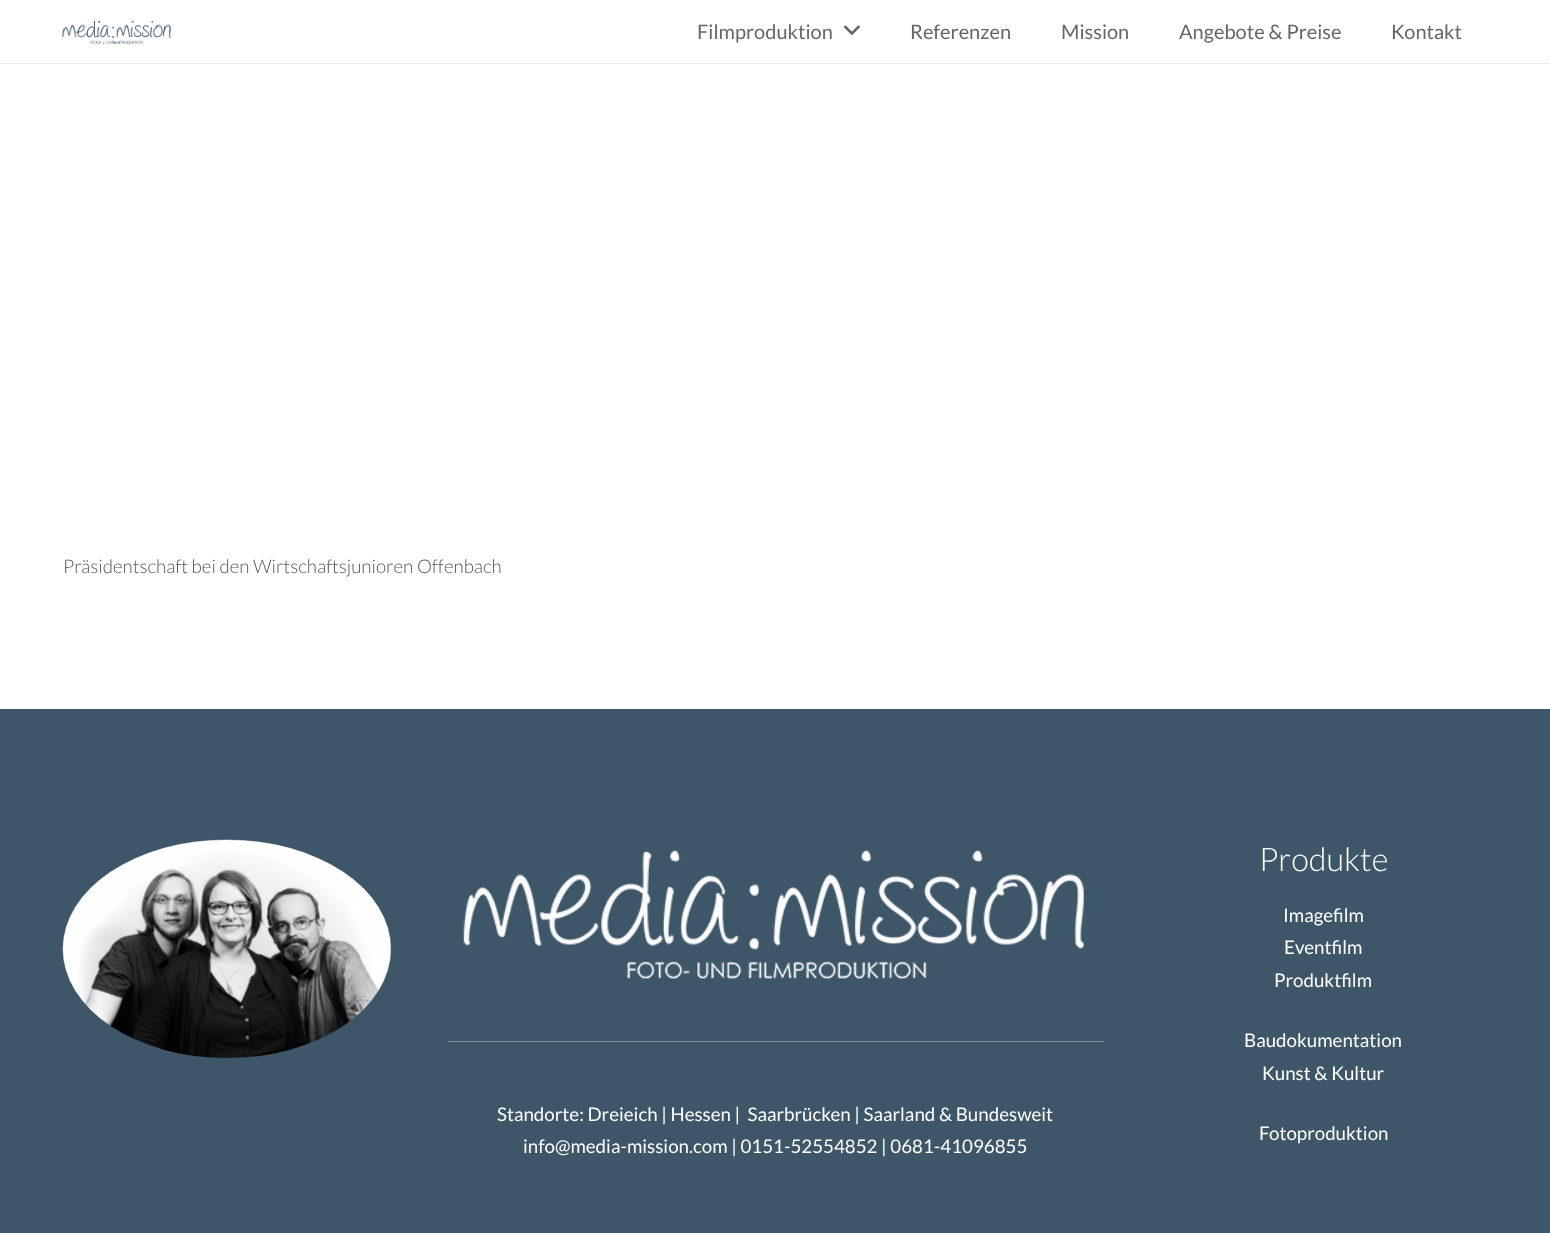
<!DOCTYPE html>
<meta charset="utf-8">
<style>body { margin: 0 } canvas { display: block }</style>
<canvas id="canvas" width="1550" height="1233"></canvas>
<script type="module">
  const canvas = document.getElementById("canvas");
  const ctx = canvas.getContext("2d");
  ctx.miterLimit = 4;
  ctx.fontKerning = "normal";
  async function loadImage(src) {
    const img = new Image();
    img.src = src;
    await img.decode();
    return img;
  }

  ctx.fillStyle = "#ffffff";
  ctx.fillRect(0, 0, 1550, 1233);
  ctx.fillStyle = "#ebebeb";
  ctx.fillRect(0, 63, 1550, 1);
  ctx.drawImage(await loadImage("img1.png"), 62, 20, 109, 24);
  ctx.font = "20px Lato";
  ctx.fillStyle = "#666666";
  ctx.fillText("Filmproduktion", 697, 39);
  ctx.drawImage(await loadImage("img2.png"), 843, 25, 17, 11);
  ctx.fillText("Referenzen", 910, 39);
  ctx.fillText("Mission", 1061, 39);
  ctx.fillText("Angebote & Preise", 1179, 39);
  ctx.fillText("Kontakt", 1391, 39);
  ctx.font = "300 18.75px Lato";
  ctx.fillStyle = "#555555";
  ctx.fillText("Präsidentschaft bei den Wirtschaftsjunioren Offenbach", 63, 573);
  ctx.fillStyle = "#3d5668";
  ctx.fillRect(0, 709, 1550, 524);
  ctx.drawImage(await loadImage("img3.png"), 62, 839, 330, 220);
  ctx.drawImage(await loadImage("img4.png"), 463, 850, 621, 129);
  ctx.fillStyle = "#7d8e9a";
  ctx.fillRect(448, 1041, 656, 1);
  ctx.font = "18.75px Lato";
  ctx.fillStyle = "#ffffff";
  ctx.fillText("Standorte: Dreieich | Hessen |  Saarbrücken | Saarland & Bundesweit", 497, 1121);
  ctx.fillText("info@media-mission.com | 0151-52554852 | 0681-41096855", 523, 1153);
  ctx.font = "300 32.5px Lato";
  ctx.fillText("Produkte", 1259, 871);
  ctx.font = "18.75px Lato";
  ctx.fillText("Imagefilm", 1283, 922);
  ctx.fillText("Eventfilm", 1284, 954);
  ctx.fillText("Produktfilm", 1274, 987);
  ctx.fillText("Baudokumentation", 1244, 1047);
  ctx.fillText("Kunst & Kultur", 1262, 1080);
  ctx.fillText("Fotoproduktion", 1259, 1140);
</script>
